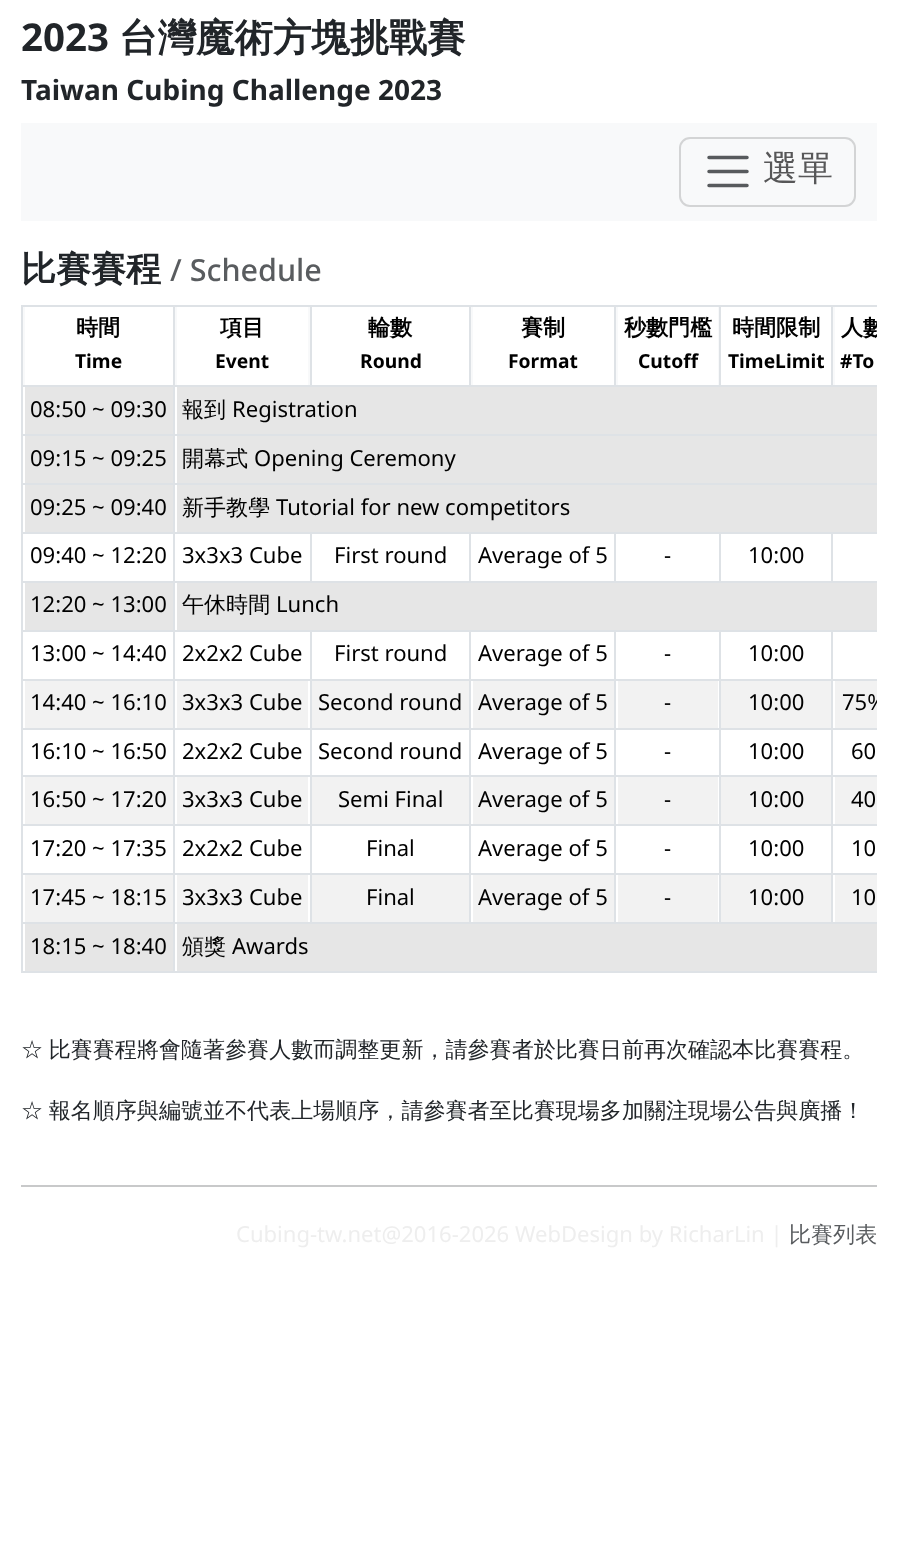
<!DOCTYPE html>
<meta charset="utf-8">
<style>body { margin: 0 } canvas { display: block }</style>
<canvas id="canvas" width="897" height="1542"></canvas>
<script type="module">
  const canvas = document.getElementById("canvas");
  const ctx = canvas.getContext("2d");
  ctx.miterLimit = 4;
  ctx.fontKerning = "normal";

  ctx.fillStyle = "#ffffff";
  ctx.fillRect(0, 0, 897, 1542);
  ctx.font = "bold 38.5px Noto Sans";
  ctx.fillStyle = "#212529";
  ctx.fillText("2023", 21, 51);
  ctx.font = "bold 38.5px WenQuanYi Zen Hei";
  ctx.fillText("台灣魔術方塊挑戰賽", 119, 51);
  ctx.font = "bold 28px Noto Sans";
  ctx.fillText("Taiwan Cubing Challenge 2023", 21, 100);
  ctx.fillStyle = "#f8f9fa";
  ctx.fillRect(21, 123, 856, 98);
  ctx.beginPath();
  ctx.roundRect(680, 138, 175, 68, 10);
  ctx.strokeStyle = "#d3d4d5";
  ctx.lineWidth = 2;
  ctx.stroke();
  ctx.beginPath();
  ctx.moveTo(709, 157.5);
  ctx.lineTo(747, 157.5);
  ctx.moveTo(709, 171.5);
  ctx.lineTo(747, 171.5);
  ctx.moveTo(709, 185.5);
  ctx.lineTo(747, 185.5);
  ctx.strokeStyle = "#575a5d";
  ctx.lineWidth = 3.5;
  ctx.lineCap = "round";
  ctx.stroke();
  ctx.font = "500 35px WenQuanYi Zen Hei";
  ctx.fillStyle = "#575758";
  ctx.fillText("選單", 763, 180);
  ctx.font = "bold 35px WenQuanYi Zen Hei";
  ctx.fillStyle = "#212529";
  ctx.fillText("比賽賽程", 21, 281);
  ctx.font = "500 30.5px Noto Sans";
  ctx.fillStyle = "#595c5f";
  ctx.fillText("/ Schedule", 170, 281);
  ctx.fillStyle = "#f8f9fa";
  ctx.fillRect(23, 307, 812, 78);
  ctx.fillStyle = "#dee2e6";
  ctx.fillRect(21, 305, 856, 2);
  ctx.fillStyle = "#ffffff";
  ctx.fillRect(25, 307, 148, 78);
  ctx.font = "bold 22.05px WenQuanYi Zen Hei";
  ctx.fillStyle = "#000000";
  ctx.fillText("時間", 76, 335);
  ctx.font = "bold 19.25px Noto Sans";
  ctx.fillText("Time", 75, 368);
  ctx.fillStyle = "#ffffff";
  ctx.fillRect(177, 307, 131, 78);
  ctx.font = "bold 22.05px WenQuanYi Zen Hei";
  ctx.fillStyle = "#000000";
  ctx.fillText("項目", 220, 335);
  ctx.font = "bold 19.25px Noto Sans";
  ctx.fillText("Event", 215, 368);
  ctx.fillStyle = "#ffffff";
  ctx.fillRect(312, 307, 157, 78);
  ctx.fillStyle = "#dee2e6";
  ctx.fillRect(21, 385, 856, 2);
  ctx.fillRect(310, 305, 2, 82);
  ctx.font = "bold 22.05px WenQuanYi Zen Hei";
  ctx.fillStyle = "#000000";
  ctx.fillText("輪數", 368, 335);
  ctx.font = "bold 19.25px Noto Sans";
  ctx.fillText("Round", 360, 368);
  ctx.fillStyle = "#ffffff";
  ctx.fillRect(473, 307, 141, 78);
  ctx.fillStyle = "#dee2e6";
  ctx.fillRect(469, 305, 2, 82);
  ctx.font = "bold 22.05px WenQuanYi Zen Hei";
  ctx.fillStyle = "#000000";
  ctx.fillText("賽制", 521, 335);
  ctx.font = "bold 19.25px Noto Sans";
  ctx.fillText("Format", 508, 368);
  ctx.fillStyle = "#ffffff";
  ctx.fillRect(618, 307, 100, 78);
  ctx.fillStyle = "#dee2e6";
  ctx.fillRect(614, 305, 2, 82);
  ctx.font = "bold 22.05px WenQuanYi Zen Hei";
  ctx.fillStyle = "#000000";
  ctx.fillText("秒數門檻", 624, 335);
  ctx.font = "bold 19.25px Noto Sans";
  ctx.fillText("Cutoff", 638, 368);
  ctx.fillStyle = "#ffffff";
  ctx.fillRect(721, 307, 110, 78);
  ctx.fillStyle = "#dee2e6";
  ctx.fillRect(719, 305, 2, 82);
  ctx.font = "bold 22.05px WenQuanYi Zen Hei";
  ctx.fillStyle = "#000000";
  ctx.fillText("時間限制", 732, 335);
  ctx.font = "bold 19.25px Noto Sans";
  ctx.fillText("TimeLimit", 728, 368);
  ctx.fillStyle = "#dee2e6";
  ctx.fillRect(831, 305, 2, 82);
  ctx.save();
  ctx.beginPath();
  ctx.rect(21, 249, 856, 752);
  ctx.clip();
  ctx.font = "bold 22.05px WenQuanYi Zen Hei";
  ctx.fillStyle = "#000000";
  ctx.fillText("人數", 841, 335);
  ctx.restore();
  ctx.fillStyle = "#000000";
  ctx.fillText("#To", 840, 368);
  ctx.fillStyle = "#e6e6e6";
  ctx.fillRect(25, 387, 148, 47);
  ctx.font = "22.05px Noto Sans";
  ctx.fillStyle = "#000000";
  ctx.fillText("08:50 ~ 09:30", 30, 417);
  ctx.fillStyle = "#e6e6e6";
  ctx.fillRect(177, 387, 700, 47);
  ctx.font = "500 22.05px WenQuanYi Zen Hei";
  ctx.fillStyle = "#000000";
  ctx.fillText("報到", 182, 417);
  ctx.font = "22.05px Noto Sans";
  ctx.fillText("Registration", 232, 417);
  ctx.fillStyle = "#dee2e6";
  ctx.fillRect(21, 434, 856, 2);
  ctx.fillStyle = "#e6e6e6";
  ctx.fillRect(25, 436, 148, 47);
  ctx.fillStyle = "#000000";
  ctx.fillText("09:15 ~ 09:25", 30, 466);
  ctx.fillStyle = "#e6e6e6";
  ctx.fillRect(177, 436, 700, 47);
  ctx.font = "500 22.05px WenQuanYi Zen Hei";
  ctx.fillStyle = "#000000";
  ctx.fillText("開幕式", 182, 466);
  ctx.font = "22.05px Noto Sans";
  ctx.fillText("Opening Ceremony", 254, 466);
  ctx.fillStyle = "#dee2e6";
  ctx.fillRect(21, 483, 856, 2);
  ctx.fillStyle = "#e6e6e6";
  ctx.fillRect(25, 485, 148, 47);
  ctx.fillStyle = "#000000";
  ctx.fillText("09:25 ~ 09:40", 30, 515);
  ctx.fillStyle = "#e6e6e6";
  ctx.fillRect(177, 485, 700, 47);
  ctx.font = "500 22.05px WenQuanYi Zen Hei";
  ctx.fillStyle = "#000000";
  ctx.fillText("新手教學", 182, 515);
  ctx.font = "22.05px Noto Sans";
  ctx.fillText("Tutorial for new competitors", 276, 515);
  ctx.fillStyle = "#dee2e6";
  ctx.fillRect(21, 532, 856, 2);
  ctx.fillStyle = "#000000";
  ctx.fillText("09:40 ~ 12:20", 30, 563);
  ctx.fillText("3x3x3 Cube", 182, 563);
  ctx.fillStyle = "#dee2e6";
  ctx.fillRect(21, 581, 856, 2);
  ctx.fillRect(310, 532, 2, 51);
  ctx.fillStyle = "#000000";
  ctx.fillText("First round", 334, 563);
  ctx.fillStyle = "#dee2e6";
  ctx.fillRect(469, 532, 2, 51);
  ctx.fillStyle = "#000000";
  ctx.fillText("Average of 5", 478, 563);
  ctx.fillStyle = "#dee2e6";
  ctx.fillRect(614, 532, 2, 51);
  ctx.fillStyle = "#000000";
  ctx.fillText("-", 664, 563);
  ctx.fillStyle = "#dee2e6";
  ctx.fillRect(719, 532, 2, 51);
  ctx.fillStyle = "#000000";
  ctx.fillText("10:00", 748, 563);
  ctx.fillStyle = "#dee2e6";
  ctx.fillRect(831, 532, 2, 51);
  ctx.fillStyle = "#e6e6e6";
  ctx.fillRect(25, 583, 148, 47);
  ctx.fillStyle = "#000000";
  ctx.fillText("12:20 ~ 13:00", 30, 612);
  ctx.fillStyle = "#e6e6e6";
  ctx.fillRect(177, 583, 700, 47);
  ctx.font = "500 22.05px WenQuanYi Zen Hei";
  ctx.fillStyle = "#000000";
  ctx.fillText("午休時間", 182, 612);
  ctx.font = "22.05px Noto Sans";
  ctx.fillText("Lunch", 276, 612);
  ctx.fillStyle = "#dee2e6";
  ctx.fillRect(21, 630, 856, 2);
  ctx.fillStyle = "#000000";
  ctx.fillText("13:00 ~ 14:40", 30, 661);
  ctx.fillText("2x2x2 Cube", 182, 661);
  ctx.fillText("First round", 334, 661);
  ctx.fillText("Average of 5", 478, 661);
  ctx.fillText("-", 664, 661);
  ctx.fillText("10:00", 748, 661);
  ctx.fillStyle = "#dee2e6";
  ctx.fillRect(21, 679, 856, 2);
  ctx.fillStyle = "#f2f2f2";
  ctx.fillRect(25, 681, 148, 47);
  ctx.fillStyle = "#000000";
  ctx.fillText("14:40 ~ 16:10", 30, 710);
  ctx.fillStyle = "#f2f2f2";
  ctx.fillRect(177, 681, 131, 47);
  ctx.fillStyle = "#000000";
  ctx.fillText("3x3x3 Cube", 182, 710);
  ctx.fillStyle = "#f2f2f2";
  ctx.fillRect(312, 681, 157, 47);
  ctx.fillStyle = "#000000";
  ctx.fillText("Second round", 318, 710);
  ctx.fillStyle = "#f2f2f2";
  ctx.fillRect(473, 681, 141, 47);
  ctx.fillStyle = "#000000";
  ctx.fillText("Average of 5", 478, 710);
  ctx.fillStyle = "#f2f2f2";
  ctx.fillRect(618, 681, 100, 47);
  ctx.fillStyle = "#000000";
  ctx.fillText("-", 664, 710);
  ctx.fillStyle = "#f2f2f2";
  ctx.fillRect(721, 681, 110, 47);
  ctx.fillStyle = "#000000";
  ctx.fillText("10:00", 748, 710);
  ctx.fillStyle = "#f2f2f2";
  ctx.fillRect(835, 681, 42, 47);
  ctx.save();
  ctx.beginPath();
  ctx.rect(21, 249, 856, 752);
  ctx.clip();
  ctx.fillStyle = "#000000";
  ctx.fillText("75%", 842, 710);
  ctx.restore();
  ctx.fillStyle = "#dee2e6";
  ctx.fillRect(21, 728, 856, 2);
  ctx.fillStyle = "#000000";
  ctx.fillText("16:10 ~ 16:50", 30, 759);
  ctx.fillText("2x2x2 Cube", 182, 759);
  ctx.fillText("Second round", 318, 759);
  ctx.fillText("Average of 5", 478, 759);
  ctx.fillText("-", 664, 759);
  ctx.fillText("10:00", 748, 759);
  ctx.fillText("60", 851, 759);
  ctx.fillStyle = "#dee2e6";
  ctx.fillRect(21, 775, 856, 2);
  ctx.fillStyle = "#f2f2f2";
  ctx.fillRect(25, 777, 148, 47);
  ctx.fillStyle = "#000000";
  ctx.fillText("16:50 ~ 17:20", 30, 807);
  ctx.fillStyle = "#f2f2f2";
  ctx.fillRect(177, 777, 131, 47);
  ctx.fillStyle = "#000000";
  ctx.fillText("3x3x3 Cube", 182, 807);
  ctx.fillStyle = "#f2f2f2";
  ctx.fillRect(312, 777, 157, 47);
  ctx.fillStyle = "#000000";
  ctx.fillText("Semi Final", 338, 807);
  ctx.fillStyle = "#f2f2f2";
  ctx.fillRect(473, 777, 141, 47);
  ctx.fillStyle = "#000000";
  ctx.fillText("Average of 5", 478, 807);
  ctx.fillStyle = "#f2f2f2";
  ctx.fillRect(618, 777, 100, 47);
  ctx.fillStyle = "#000000";
  ctx.fillText("-", 664, 807);
  ctx.fillStyle = "#f2f2f2";
  ctx.fillRect(721, 777, 110, 47);
  ctx.fillStyle = "#000000";
  ctx.fillText("10:00", 748, 807);
  ctx.fillStyle = "#f2f2f2";
  ctx.fillRect(835, 777, 42, 47);
  ctx.fillStyle = "#000000";
  ctx.fillText("40", 851, 807);
  ctx.fillStyle = "#dee2e6";
  ctx.fillRect(21, 824, 856, 2);
  ctx.fillStyle = "#000000";
  ctx.fillText("17:20 ~ 17:35", 30, 856);
  ctx.fillText("2x2x2 Cube", 182, 856);
  ctx.fillText("Final", 366, 856);
  ctx.fillText("Average of 5", 478, 856);
  ctx.fillText("-", 664, 856);
  ctx.fillText("10:00", 748, 856);
  ctx.fillText("10", 851, 856);
  ctx.fillStyle = "#dee2e6";
  ctx.fillRect(21, 873, 856, 2);
  ctx.fillStyle = "#f2f2f2";
  ctx.fillRect(25, 875, 148, 47);
  ctx.fillStyle = "#000000";
  ctx.fillText("17:45 ~ 18:15", 30, 905);
  ctx.fillStyle = "#f2f2f2";
  ctx.fillRect(177, 875, 131, 47);
  ctx.fillStyle = "#000000";
  ctx.fillText("3x3x3 Cube", 182, 905);
  ctx.fillStyle = "#f2f2f2";
  ctx.fillRect(312, 875, 157, 47);
  ctx.fillStyle = "#dee2e6";
  ctx.fillRect(21, 922, 856, 2);
  ctx.fillRect(310, 630, 2, 294);
  ctx.fillStyle = "#000000";
  ctx.fillText("Final", 366, 905);
  ctx.fillStyle = "#f2f2f2";
  ctx.fillRect(473, 875, 141, 47);
  ctx.fillStyle = "#dee2e6";
  ctx.fillRect(469, 630, 2, 294);
  ctx.fillStyle = "#000000";
  ctx.fillText("Average of 5", 478, 905);
  ctx.fillStyle = "#f2f2f2";
  ctx.fillRect(618, 875, 100, 47);
  ctx.fillStyle = "#dee2e6";
  ctx.fillRect(614, 630, 2, 294);
  ctx.fillStyle = "#000000";
  ctx.fillText("-", 664, 905);
  ctx.fillStyle = "#f2f2f2";
  ctx.fillRect(721, 875, 110, 47);
  ctx.fillStyle = "#dee2e6";
  ctx.fillRect(719, 630, 2, 294);
  ctx.fillStyle = "#000000";
  ctx.fillText("10:00", 748, 905);
  ctx.fillStyle = "#f2f2f2";
  ctx.fillRect(835, 875, 42, 47);
  ctx.fillStyle = "#dee2e6";
  ctx.fillRect(831, 630, 2, 294);
  ctx.fillStyle = "#000000";
  ctx.fillText("10", 851, 905);
  ctx.fillStyle = "#dee2e6";
  ctx.fillRect(21, 971, 856, 2);
  ctx.fillStyle = "#e6e6e6";
  ctx.fillRect(25, 924, 148, 47);
  ctx.fillStyle = "#dee2e6";
  ctx.fillRect(21, 305, 2, 668);
  ctx.fillStyle = "#000000";
  ctx.fillText("18:15 ~ 18:40", 30, 954);
  ctx.fillStyle = "#e6e6e6";
  ctx.fillRect(177, 924, 700, 47);
  ctx.fillStyle = "#dee2e6";
  ctx.fillRect(173, 305, 2, 668);
  ctx.font = "500 22.05px WenQuanYi Zen Hei";
  ctx.fillStyle = "#000000";
  ctx.fillText("頒獎", 182, 954);
  ctx.font = "22.05px Noto Sans";
  ctx.fillText("Awards", 232, 954);
  ctx.wordSpacing = "-1px";
  ctx.font = "500 22.05px WenQuanYi Zen Hei";
  ctx.fillStyle = "#212529";
  ctx.fillText("☆ 比賽賽程將會隨著參賽人數而調整更新，請參賽者於比賽日前再次確認本比賽賽程。", 21, 1057);
  ctx.fillText("☆ 報名順序與編號並不代表上場順序，請參賽者至比賽現場多加關注現場公告與廣播！", 21, 1118);
  ctx.fillStyle = "#c8c9ca";
  ctx.fillRect(21, 1185, 856, 2);
  ctx.wordSpacing = "0px";
  ctx.font = "22.05px Noto Sans";
  ctx.fillStyle = "#eeeeee";
  ctx.fillText("Cubing-tw.net@2016-2026 WebDesign by RicharLin |", 236, 1242);
  ctx.font = "500 22.05px WenQuanYi Zen Hei";
  ctx.fillStyle = "#595c5f";
  ctx.fillText("比賽列表", 789, 1242);
</script>
